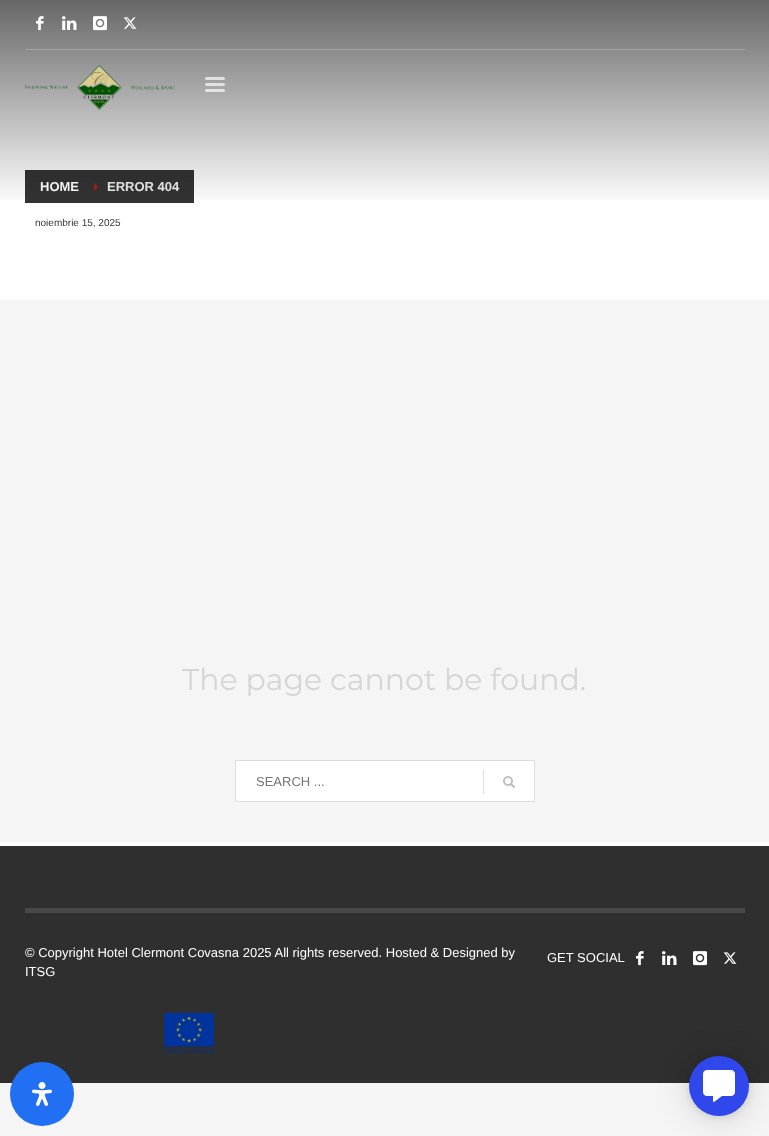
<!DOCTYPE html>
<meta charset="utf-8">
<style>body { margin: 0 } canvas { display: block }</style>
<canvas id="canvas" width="769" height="1136"></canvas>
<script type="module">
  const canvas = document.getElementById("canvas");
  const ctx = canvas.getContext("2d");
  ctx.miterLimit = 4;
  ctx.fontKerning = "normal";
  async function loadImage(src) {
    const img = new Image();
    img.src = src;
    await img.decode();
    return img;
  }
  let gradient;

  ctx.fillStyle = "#f5f5f5";
  ctx.fillRect(0, 0, 769, 1136);
  ctx.fillStyle = "#ffffff";
  ctx.fillRect(0, 0, 769, 300);
  ctx.fillStyle = "#333333";
  ctx.fillRect(25, 170, 169, 33);
  ctx.font = "bold 13px Liberation Sans";
  ctx.fillStyle = "#ffffff";
  ctx.fillText("HOME", 40, 191);
  ctx.fillStyle = "#ab1c1c";
  ctx.beginPath();
  ctx.moveTo(94, 191);
  ctx.lineTo(94, 183);
  ctx.lineTo(98, 187);
  ctx.closePath();
  ctx.fill();
  ctx.fillStyle = "#eeeeee";
  ctx.fillText("ERROR 404", 107, 191);
  gradient = ctx.createLinearGradient(385, 0, 385, 207);
  gradient.addColorStop(0, "rgba(0, 0, 0, 0.6)");
  gradient.addColorStop(1, "rgba(0, 0, 0, 0)");
  ctx.fillStyle = gradient;
  ctx.fillRect(0, 0, 769, 200);
  ctx.drawImage(await loadImage("img1.png"), 36, 16, 8, 15);
  ctx.drawImage(await loadImage("img2.png"), 62, 16, 15, 14);
  ctx.drawImage(await loadImage("img3.png"), 93, 16, 14, 15);
  ctx.drawImage(await loadImage("img4.png"), 123, 17, 14, 12);
  ctx.fillStyle = "#a2a2a2";
  ctx.fillRect(25, 49, 720, 1);
  ctx.drawImage(await loadImage("img5.png"), 25, 65, 150, 45);
  ctx.fillStyle = "#e1e1e1";
  ctx.beginPath();
  ctx.roundRect(205, 77, 20, 3, 1.5);
  ctx.fill();
  ctx.fillStyle = "#e2e2e2";
  ctx.beginPath();
  ctx.roundRect(205, 83, 20, 3, 1.5);
  ctx.fill();
  ctx.fillStyle = "#e4e4e4";
  ctx.beginPath();
  ctx.roundRect(205, 89, 20, 3, 1.5);
  ctx.fill();
  ctx.font = "10px Liberation Sans";
  ctx.fillStyle = "#383838";
  ctx.fillText("noiembrie 15, 2025", 35, 226);
  ctx.font = "100 30px Montserrat";
  ctx.fillStyle = "#d5d5d5";
  ctx.fillText("The page cannot be found.", 182, 690);
  ctx.fillStyle = "#ffffff";
  ctx.beginPath();
  ctx.rect(235.5, 760.5, 299, 41);
  ctx.fill();
  ctx.strokeStyle = "#dddddd";
  ctx.stroke();
  ctx.font = "13px Liberation Sans";
  ctx.fillStyle = "#757575";
  ctx.fillText("SEARCH ...", 256, 786);
  ctx.fillStyle = "#dddddd";
  ctx.fillRect(483, 770, 1, 24);
  ctx.drawImage(await loadImage("img6.png"), 503, 776, 12, 12);
  ctx.fillStyle = "#2f2f2f";
  ctx.fillRect(0, 846, 769, 237);
  ctx.fillStyle = "#ffffff";
  ctx.fillRect(0, 842, 769, 4);
  ctx.fillStyle = "#484848";
  ctx.fillRect(25, 908, 720, 5);
  ctx.fillStyle = "#ffffff";
  ctx.fillText("© Copyright Hotel Clermont Covasna 2025 All rights reserved. Hosted & Designed by", 25, 957);
  ctx.fillText("ITSG", 25, 976);
  ctx.fillText("GET SOCIAL", 547, 962);
  ctx.drawImage(await loadImage("img7.png"), 636, 951, 8, 15);
  ctx.drawImage(await loadImage("img8.png"), 662, 951, 15, 14);
  ctx.drawImage(await loadImage("img9.png"), 693, 951, 14, 15);
  ctx.drawImage(await loadImage("img10.png"), 723, 952, 14, 12);
  ctx.drawImage(await loadImage("img11.png"), 164, 1013, 50, 40);
  ctx.fillStyle = "#216ff3";
  ctx.beginPath();
  ctx.arc(42, 1094, 32, 0, Math.PI * 2);
  ctx.fill();
  ctx.drawImage(await loadImage("img12.png"), 32, 1082, 20, 24);
  ctx.fillStyle = "rgba(0, 0, 0, 0.16)";
  ctx.filter = "blur(16px)";
  ctx.beginPath();
  ctx.roundRect(689, 1058, 60, 60, 30);
  ctx.fill();
  ctx.filter = "none";
  ctx.fillStyle = "rgba(0, 0, 0, 0.1)";
  ctx.filter = "blur(3px)";
  ctx.beginPath();
  ctx.roundRect(689, 1057, 60, 60, 30);
  ctx.fill();
  ctx.filter = "none";
  ctx.fillStyle = "#3047ec";
  ctx.beginPath();
  ctx.arc(719, 1086, 30, 0, Math.PI * 2);
  ctx.fill();
  ctx.drawImage(await loadImage("img13.png"), 703, 1070, 32, 32);
</script>
